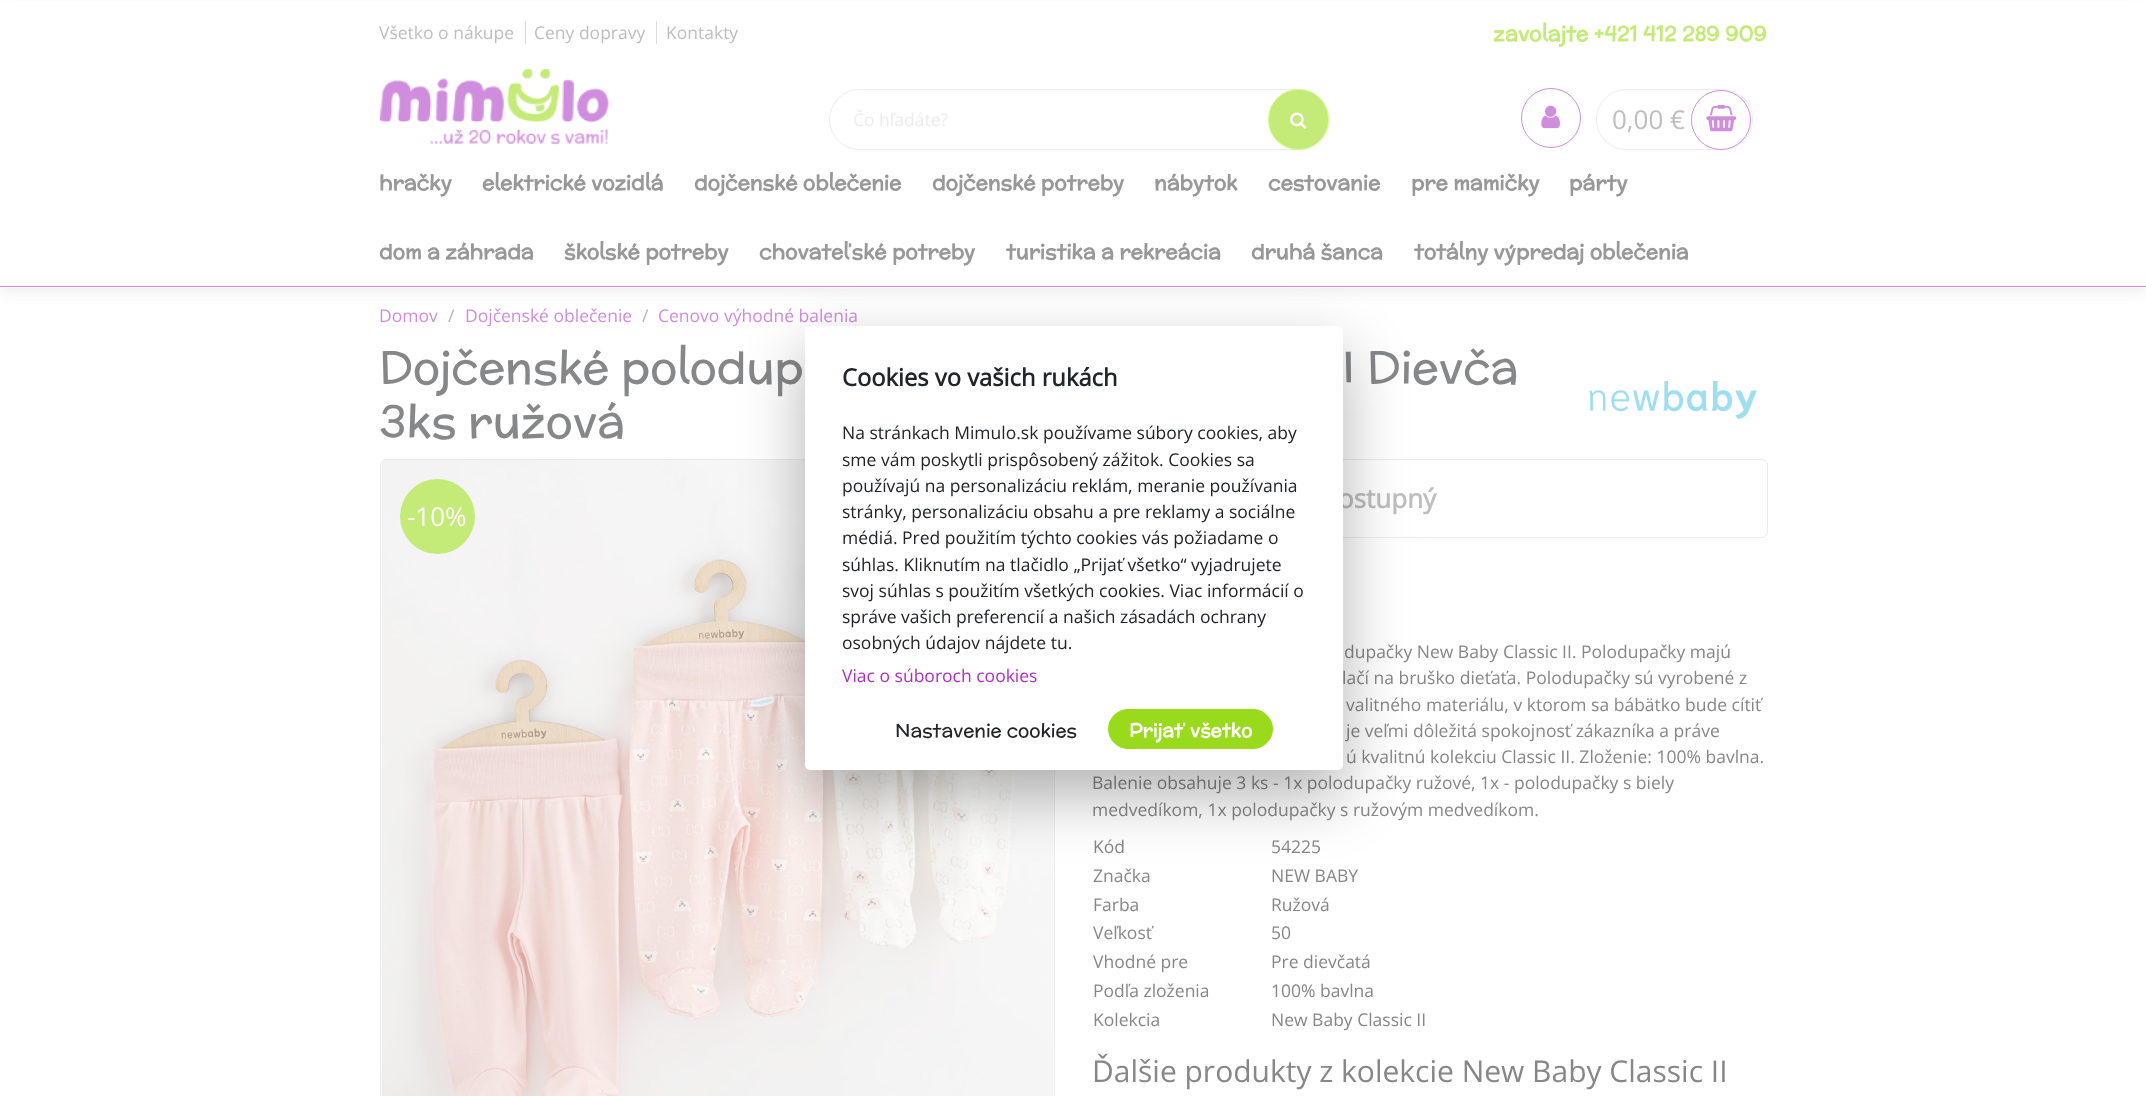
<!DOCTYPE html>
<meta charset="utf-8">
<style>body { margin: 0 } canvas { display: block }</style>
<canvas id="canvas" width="2146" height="1096"></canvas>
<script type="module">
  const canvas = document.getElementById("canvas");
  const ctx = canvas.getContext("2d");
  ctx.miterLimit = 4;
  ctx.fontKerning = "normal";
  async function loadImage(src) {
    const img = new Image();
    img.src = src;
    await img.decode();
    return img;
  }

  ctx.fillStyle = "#ffffff";
  ctx.fillRect(0, 0, 2146, 1096);
  ctx.fillStyle = "rgba(236, 236, 236, 0.73)";
  ctx.filter = "blur(6px)";
  ctx.beginPath();
  ctx.rect(0, 6, 2146, 288);
  ctx.fill();
  ctx.filter = "none";
  ctx.fillStyle = "#ffffff";
  ctx.fillRect(0, 1, 2146, 287);
  ctx.fillStyle = "#d18ddd";
  ctx.fillRect(0, 286, 2146, 1);
  ctx.font = "17.5px Open Sans";
  ctx.fillStyle = "#bebebe";
  ctx.fillText("Všetko o nákupe", 379, 39);
  ctx.fillStyle = "#dcdcdc";
  ctx.fillRect(525, 21, 1, 23);
  ctx.fillStyle = "#bebebe";
  ctx.fillText("Ceny dopravy", 534, 39);
  ctx.fillStyle = "#dcdcdc";
  ctx.fillRect(656, 21, 1, 23);
  ctx.fillStyle = "#bebebe";
  ctx.fillText("Kontakty", 666, 39);
  ctx.font = "bold 21px McLaren";
  ctx.fillStyle = "#c4ea78";
  ctx.fillText("zavolajte +421 412 289 909", 1493, 41);
  ctx.drawImage(await loadImage("img1.png"), 380, 69, 229, 76);
  ctx.beginPath();
  ctx.roundRect(829.5, 89.5, 499, 60, 30);
  ctx.strokeStyle = "#ececec";
  ctx.stroke();
  ctx.font = "17.5px Open Sans";
  ctx.fillStyle = "#ececec";
  ctx.fillText("Čo hľadáte?", 853, 126);
  ctx.fillStyle = "#c4ea78";
  ctx.beginPath();
  ctx.roundRect(1268.5, 89.5, 60, 60, 29.5);
  ctx.fill();
  ctx.strokeStyle = "#d8fb91";
  ctx.stroke();
  ctx.drawImage(await loadImage("img2.png"), 1290, 112, 17, 17);
  ctx.beginPath();
  ctx.arc(1551, 118, 29.5, 0, Math.PI * 2);
  ctx.strokeStyle = "#d18ddd";
  ctx.stroke();
  ctx.drawImage(await loadImage("img3.png"), 1541, 105, 19, 24);
  ctx.beginPath();
  ctx.roundRect(1596.5, 89.5, 156, 60, 29.5);
  ctx.strokeStyle = "#ececec";
  ctx.stroke();
  ctx.font = "26px Open Sans";
  ctx.fillStyle = "#bebebe";
  ctx.fillText("0,00 €", 1612, 129);
  ctx.fillStyle = "#ffffff";
  ctx.beginPath();
  ctx.arc(1721, 120, 29.5, 0, Math.PI * 2);
  ctx.fill();
  ctx.strokeStyle = "#d18ddd";
  ctx.stroke();
  ctx.drawImage(await loadImage("img4.png"), 1706, 105, 31, 27);
  ctx.font = "bold 20.6px McLaren";
  ctx.fillStyle = "#989898";
  ctx.fillText("hračky", 379, 190);
  ctx.fillText("elektrické vozidlá", 482, 190);
  ctx.fillText("dojčenské oblečenie", 694, 190);
  ctx.fillText("dojčenské potreby", 932, 190);
  ctx.fillText("nábytok", 1154, 190);
  ctx.fillText("cestovanie", 1268, 190);
  ctx.fillText("pre mamičky", 1411, 190);
  ctx.fillText("párty", 1569, 190);
  ctx.fillText("dom a záhrada", 379, 259);
  ctx.fillText("školské potreby", 564, 259);
  ctx.fillText("chovateľské potreby", 759, 259);
  ctx.fillText("turistika a rekreácia", 1006, 259);
  ctx.fillText("druhá šanca", 1251, 259);
  ctx.fillText("totálny výpredaj oblečenia", 1414, 259);
  ctx.font = "17.5px Open Sans";
  ctx.fillStyle = "#d18ddd";
  ctx.fillText("Domov", 379, 322);
  ctx.fillStyle = "#aeb3b8";
  ctx.fillText("/", 448, 322);
  ctx.fillStyle = "#d18ddd";
  ctx.fillText("Dojčenské oblečenie", 465, 322);
  ctx.fillStyle = "#aeb3b8";
  ctx.fillText("/", 642, 322);
  ctx.fillStyle = "#d18ddd";
  ctx.fillText("Cenovo výhodné balenia", 658, 322);
  ctx.font = "45px McLaren";
  ctx.fillStyle = "#858789";
  ctx.fillText("Dojčenské polodup", 379, 383);
  ctx.fillText("I Dievča", 1342, 383);
  ctx.fillText("3ks ružová", 379, 437);
  ctx.drawImage(await loadImage("img5.png"), 1589, 381, 168, 39);
  ctx.beginPath();
  ctx.roundRect(380.5, 459.5, 674, 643, 5.5);
  ctx.strokeStyle = "#ececec";
  ctx.stroke();
  ctx.fillStyle = "#ffffff";
  ctx.beginPath();
  ctx.roundRect(381, 460, 673, 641, 5);
  ctx.fill();
  ctx.drawImage(await loadImage("img6.png"), 381, 460, 673, 636);
  ctx.fillStyle = "#c4ea78";
  ctx.beginPath();
  ctx.arc(437.5, 516.5, 37.5, 0, Math.PI * 2);
  ctx.fill();
  ctx.font = "26px Open Sans";
  ctx.fillStyle = "#ffffff";
  ctx.fillText("-10%", 407, 526);
  ctx.beginPath();
  ctx.roundRect(1093.5, 459.5, 674, 78, 5.5);
  ctx.stroke();
  ctx.font = "bold 26px Open Sans";
  ctx.fillStyle = "#bebebe";
  ctx.fillText("ostupný", 1338, 508);
  ctx.font = "17.5px Open Sans";
  ctx.fillStyle = "#858789";
  ctx.fillText("dupačky New Baby Classic II. Polodupačky majú", 1344, 658);
  ctx.fillText("lačí na bruško dieťaťa. Polodupačky sú vyrobené z", 1342, 684);
  ctx.fillText("valitného materiálu, v ktorom sa bábätko bude cítiť", 1346, 711);
  ctx.fillText("je veľmi dôležitá spokojnosť zákazníka a práve", 1346, 737);
  ctx.fillText("ú kvalitnú kolekciu Classic II. Zloženie: 100% bavlna.", 1346, 763);
  ctx.fillText("Balenie obsahuje 3 ks - 1x polodupačky ružové, 1x - polodupačky s biely", 1092, 789);
  ctx.fillText("medvedíkom, 1x polodupačky s ružovým medvedíkom.", 1092, 816);
  ctx.fillText("Kód", 1093, 853);
  ctx.fillText("54225", 1271, 853);
  ctx.fillText("Značka", 1093, 882);
  ctx.fillText("NEW BABY", 1271, 882);
  ctx.fillText("Farba", 1093, 911);
  ctx.fillText("Ružová", 1271, 911);
  ctx.fillText("Veľkosť", 1093, 939);
  ctx.fillText("50", 1271, 939);
  ctx.fillText("Vhodné pre", 1093, 968);
  ctx.fillText("Pre dievčatá", 1271, 968);
  ctx.fillText("Podľa zloženia", 1093, 997);
  ctx.fillText("100% bavlna", 1271, 997);
  ctx.fillText("Kolekcia", 1093, 1026);
  ctx.fillText("New Baby Classic II", 1271, 1026);
  ctx.font = "30px Open Sans";
  ctx.fillText("Ďalšie produkty z kolekcie New Baby Classic II", 1092, 1082);
  ctx.fillStyle = "rgba(0, 0, 0, 0.3)";
  ctx.filter = "blur(31px)";
  ctx.beginPath();
  ctx.roundRect(805, 351, 538, 444, 5);
  ctx.fill();
  ctx.filter = "none";
  ctx.fillStyle = "#ffffff";
  ctx.beginPath();
  ctx.roundRect(805, 326, 538, 444, 5);
  ctx.fill();
  ctx.font = "bold 23.75px Open Sans";
  ctx.fillStyle = "#212529";
  ctx.fillText("Cookies vo vašich rukách", 842, 386);
  ctx.font = "17.5px Open Sans";
  ctx.fillText("Na stránkach Mimulo.sk používame súbory cookies, aby", 842, 439);
  ctx.fillText("sme vám poskytli prispôsobený zážitok. Cookies sa", 842, 466);
  ctx.fillText("používajú na personalizáciu reklám, meranie používania", 842, 492);
  ctx.fillText("stránky, personalizáciu obsahu a pre reklamy a sociálne", 842, 518);
  ctx.fillText("médiá. Pred použitím týchto cookies vás požiadame o", 842, 544);
  ctx.fillText("súhlas. Kliknutím na tlačidlo „Prijať všetko“ vyjadrujete", 842, 571);
  ctx.fillText("svoj súhlas s použitím všetkých cookies. Viac informácií o", 842, 597);
  ctx.fillText("správe vašich preferencií a našich zásadách ochrany", 842, 623);
  ctx.fillText("osobných údajov nájdete tu.", 842, 649);
  ctx.fillStyle = "#ab30c1";
  ctx.fillText("Viac o súboroch cookies", 842, 682);
  ctx.font = "18.75px McLaren";
  ctx.fillStyle = "#212529";
  ctx.fillText("Nastavenie cookies", 895, 737);
  ctx.fillStyle = "#9ada1c";
  ctx.beginPath();
  ctx.roundRect(1108.5, 709.5, 164, 39, 19.5);
  ctx.fill();
  ctx.strokeStyle = "#9ada1c";
  ctx.stroke();
  ctx.font = "bold 18.75px McLaren";
  ctx.fillStyle = "#ffffff";
  ctx.fillText("Prijať všetko", 1129, 737);
</script>
